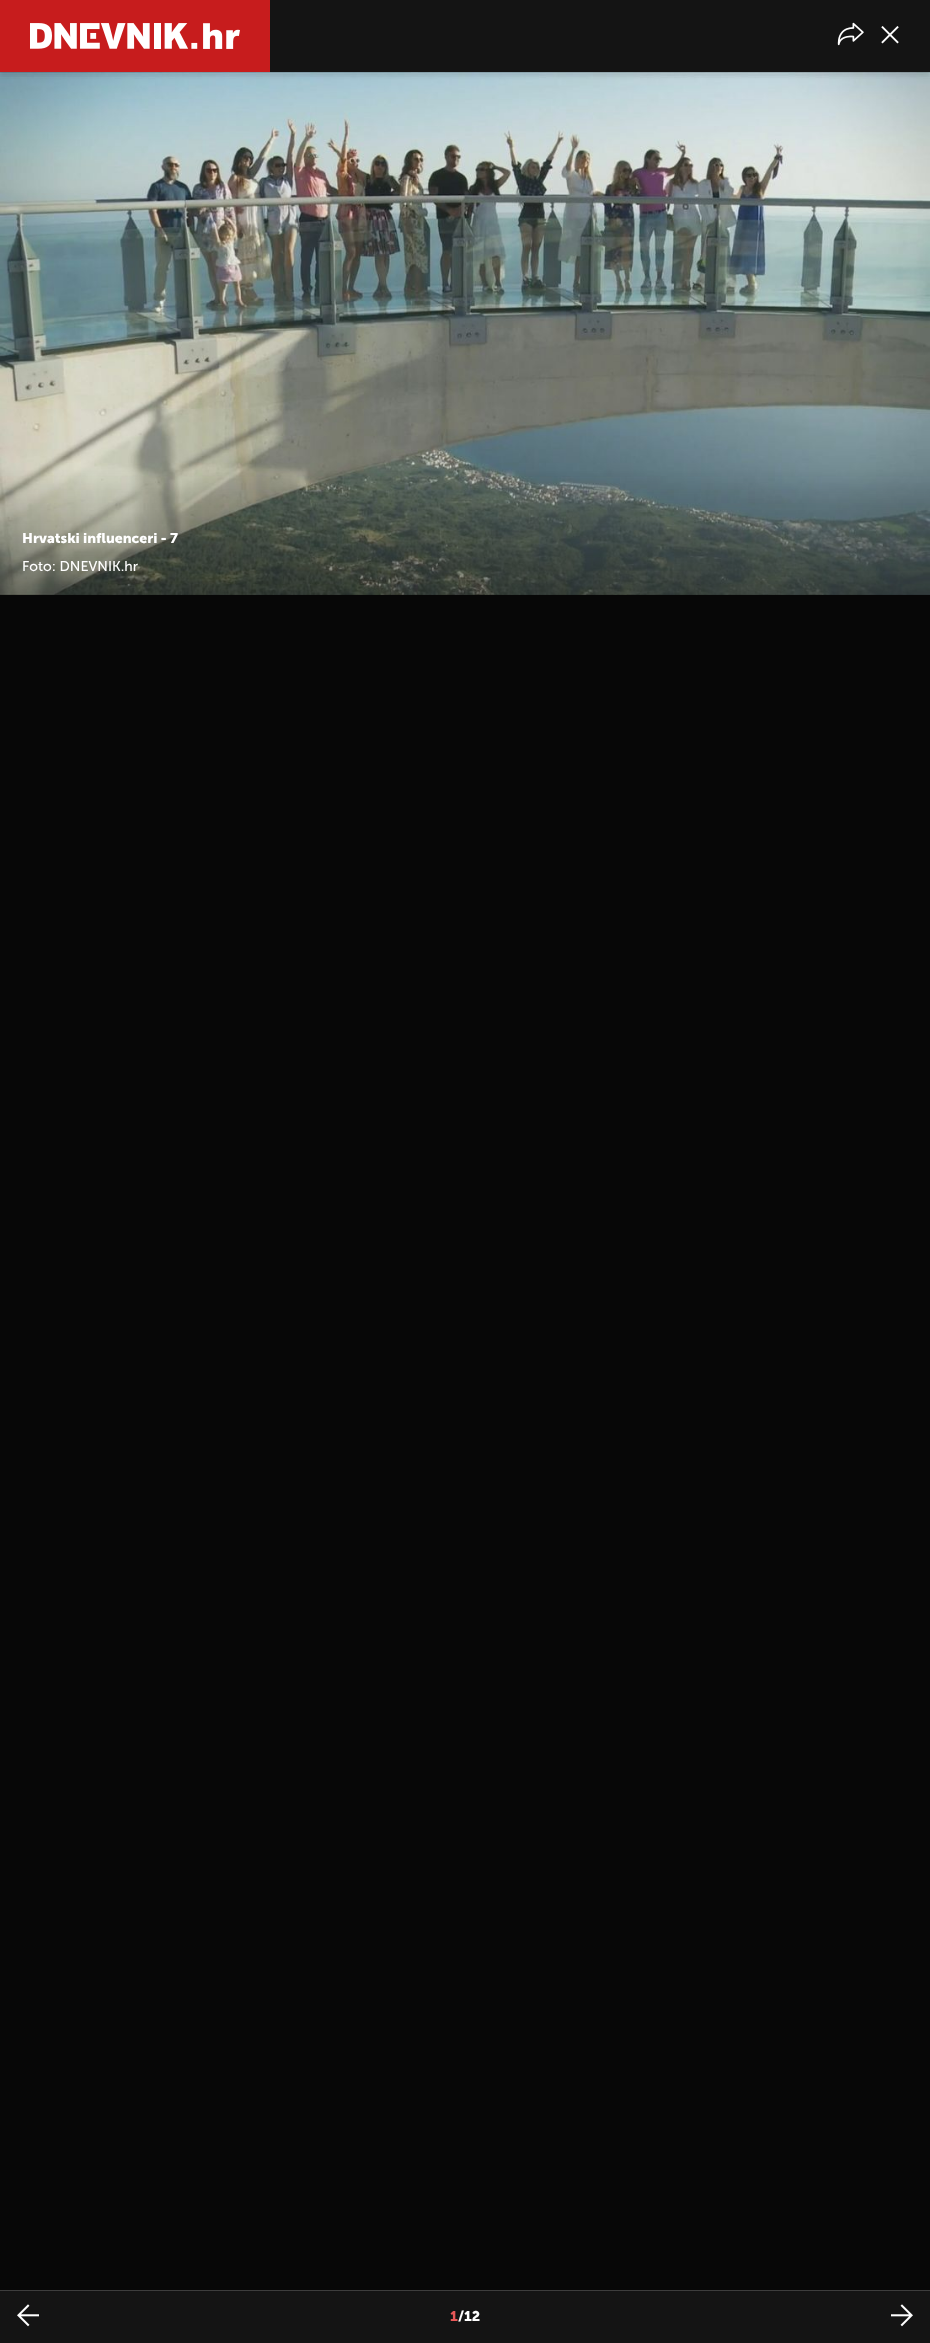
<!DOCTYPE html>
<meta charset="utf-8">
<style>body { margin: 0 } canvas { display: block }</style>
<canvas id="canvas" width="930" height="2343"></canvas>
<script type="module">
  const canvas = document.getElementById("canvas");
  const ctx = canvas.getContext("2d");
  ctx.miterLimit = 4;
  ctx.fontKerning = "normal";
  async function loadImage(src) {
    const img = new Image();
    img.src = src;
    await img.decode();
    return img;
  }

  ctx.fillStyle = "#070707";
  ctx.fillRect(0, 0, 930, 2343);
  ctx.drawImage(await loadImage("img4.png"), 0, 72, 930, 523);
  ctx.fillStyle = "rgba(0, 0, 0, 0.1)";
  ctx.filter = "blur(2px)";
  ctx.beginPath();
  ctx.rect(0, 4, 930, 72);
  ctx.fill();
  ctx.filter = "none";
  ctx.fillStyle = "#141414";
  ctx.fillRect(270, 0, 660, 72);
  ctx.fillStyle = "#c71c1d";
  ctx.fillRect(0, 0, 270, 72);
  ctx.drawImage(await loadImage("img1.png"), 30, 23, 210, 26);
  ctx.drawImage(await loadImage("img2.png"), 837, 22, 27, 24);
  ctx.drawImage(await loadImage("img3.png"), 881, 26, 18, 18);
  ctx.font = "14px Museo Sans";
  ctx.fillStyle = "#ffffff";
  ctx.fillText("Hrvatski influenceri - 7", 22, 543);
  ctx.font = "14px 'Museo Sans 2'";
  ctx.fillText("Foto: DNEVNIK.hr", 22, 571);
  ctx.fillStyle = "#141414";
  ctx.fillRect(0, 2291, 930, 52);
  ctx.fillStyle = "#3d3d3d";
  ctx.fillRect(0, 2290, 930, 1);
  ctx.drawImage(await loadImage("img5.png"), 17, 2304, 22, 23);
  ctx.font = "14px Museo Sans";
  ctx.fillStyle = "#e95858";
  ctx.fillText("1", 450, 2321);
  ctx.fillStyle = "#ffffff";
  ctx.fillText("/12", 458, 2321);
  ctx.drawImage(await loadImage("img6.png"), 891, 2304, 22, 23);
</script>
